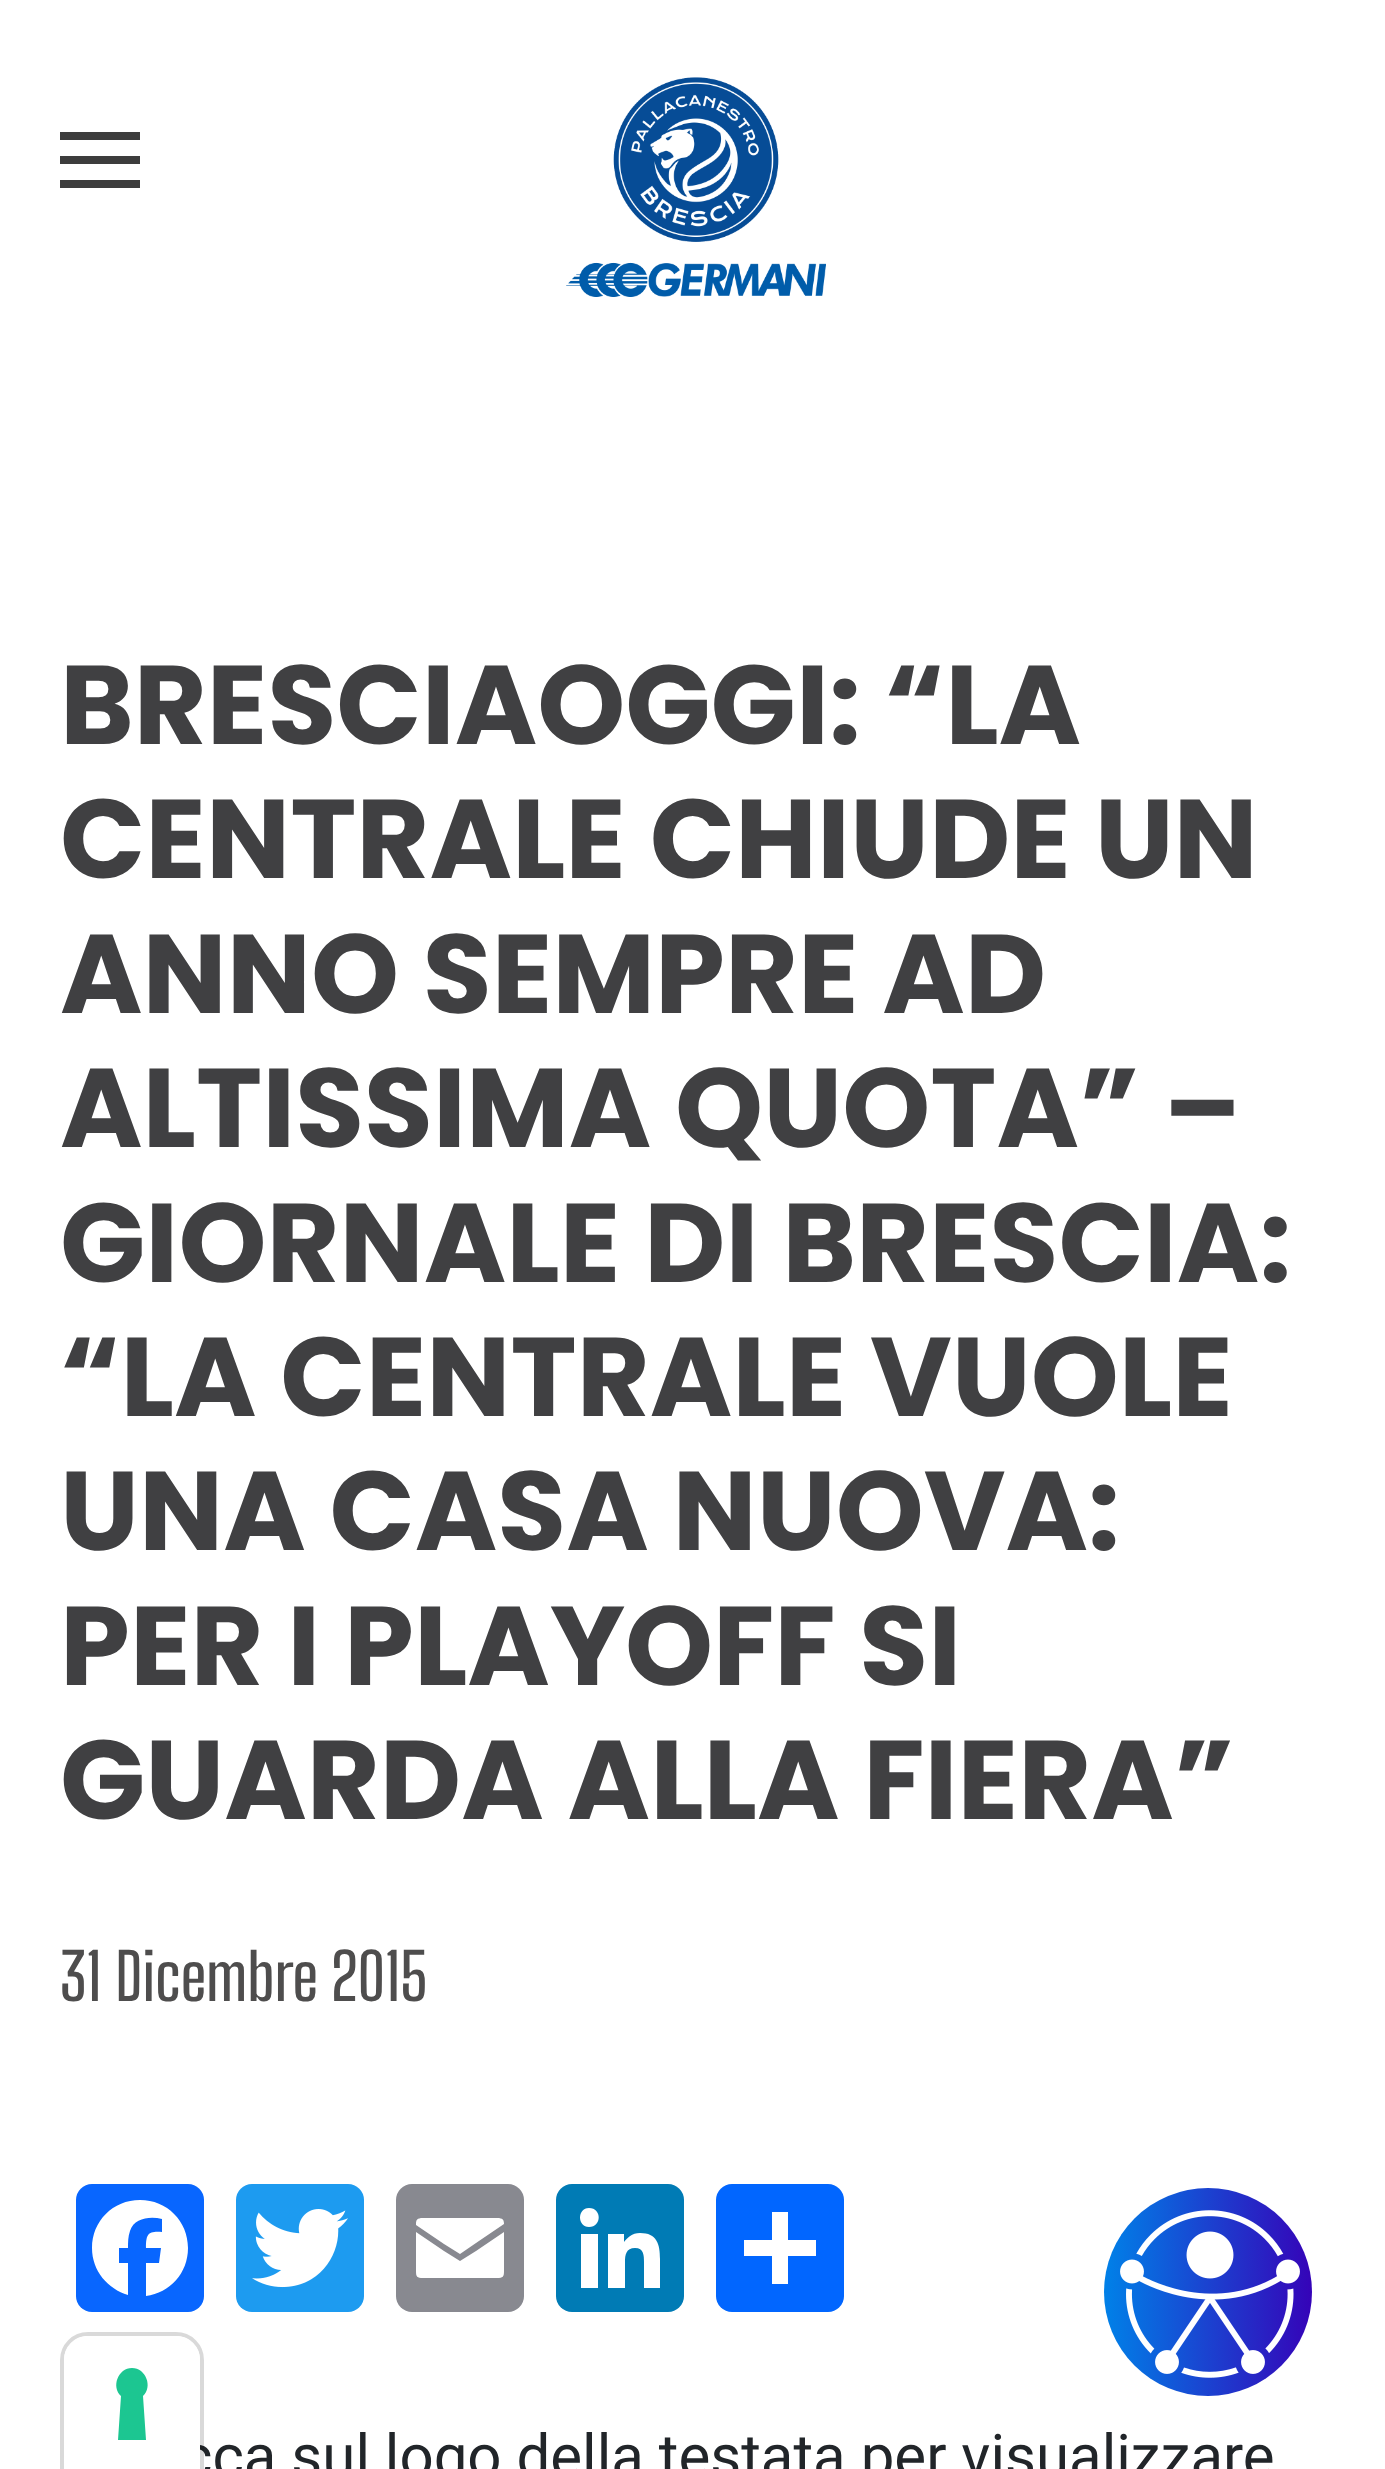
<!DOCTYPE html>
<meta charset="utf-8">
<style>body { margin: 0 } canvas { display: block }</style>
<canvas id="canvas" width="1385" height="2469"></canvas>
<script type="module">
  const canvas = document.getElementById("canvas");
  const ctx = canvas.getContext("2d");
  ctx.miterLimit = 4;
  ctx.fontKerning = "normal";
  async function loadImage(src) {
    const img = new Image();
    img.src = src;
    await img.decode();
    return img;
  }
  let gradient;

  ctx.fillStyle = "#ffffff";
  ctx.fillRect(0, 0, 1385, 2469);
  ctx.fillStyle = "#3d3d3d";
  ctx.fillRect(60, 132, 80, 8);
  ctx.fillRect(60, 156, 80, 8);
  ctx.fillRect(60, 180, 80, 8);
  ctx.drawImage(await loadImage("img1.png"), 566, 77, 260, 220);
  ctx.font = "bold 112px Poppins";
  ctx.fillStyle = "#404042";
  ctx.fillText("BRESCIAOGGI: “LA", 60, 744);
  ctx.fillText("CENTRALE CHIUDE UN", 60, 878);
  ctx.fillText("ANNO SEMPRE AD", 60, 1013);
  ctx.fillText("ALTISSIMA QUOTA” –", 60, 1147);
  ctx.fillText("GIORNALE DI BRESCIA:", 60, 1282);
  ctx.fillText("“LA CENTRALE VUOLE", 60, 1416);
  ctx.fillText("UNA CASA NUOVA:", 60, 1550);
  ctx.fillText("PER I PLAYOFF SI", 60, 1685);
  ctx.fillText("GUARDA ALLA FIERA”", 60, 1819);
  ctx.font = "500 64px Big Shoulders Text";
  ctx.fillStyle = "#4e4d4d";
  ctx.fillText("31 Dicembre 2015", 60, 2001);
  ctx.fillStyle = "#0866ff";
  ctx.beginPath();
  ctx.roundRect(76, 2184, 128, 128, 16);
  ctx.fill();
  ctx.fillStyle = "#ffffff";
  ctx.beginPath();
  ctx.moveTo(188, 2248);
  ctx.bezierCurveTo(188, 2221, 167, 2200, 140, 2200);
  ctx.bezierCurveTo(113, 2200, 92, 2221, 92, 2248);
  ctx.bezierCurveTo(92, 2271, 108, 2289, 128, 2295);
  ctx.lineTo(128, 2263);
  ctx.lineTo(119, 2263);
  ctx.lineTo(119, 2248);
  ctx.lineTo(128, 2248);
  ctx.bezierCurveTo(128, 2242, 128, 2237, 130, 2231);
  ctx.bezierCurveTo(134, 2218, 150, 2216, 162, 2219);
  ctx.lineTo(162, 2232);
  ctx.bezierCurveTo(148, 2231, 146, 2234, 146, 2248);
  ctx.lineTo(161, 2248);
  ctx.lineTo(159, 2263);
  ctx.lineTo(146, 2263);
  ctx.lineTo(146, 2296);
  ctx.bezierCurveTo(170, 2293, 188, 2273, 188, 2248);
  ctx.fill();
  ctx.fillStyle = "#1d9bf0";
  ctx.beginPath();
  ctx.roundRect(236, 2184, 128, 128, 16);
  ctx.fill();
  ctx.drawImage(await loadImage("img2.png"), 252, 2209, 96, 79);
  ctx.fillStyle = "#888990";
  ctx.beginPath();
  ctx.roundRect(396, 2184, 128, 128, 16);
  ctx.fill();
  ctx.fillStyle = "#ffffff";
  ctx.beginPath();
  ctx.moveTo(504, 2271);
  ctx.lineTo(504, 2232);
  ctx.lineTo(476, 2251);
  ctx.lineTo(460, 2261);
  ctx.lineTo(444, 2251);
  ctx.lineTo(416, 2232);
  ctx.lineTo(416, 2271);
  ctx.bezierCurveTo(416, 2277, 417, 2278, 423, 2278);
  ctx.lineTo(497, 2278);
  ctx.bezierCurveTo(503, 2278, 504, 2277, 504, 2271);
  ctx.moveTo(504, 2224);
  ctx.bezierCurveTo(504, 2220, 503, 2218, 497, 2218);
  ctx.lineTo(423, 2218);
  ctx.bezierCurveTo(417, 2218, 416, 2220, 416, 2224);
  ctx.lineTo(416, 2225);
  ctx.lineTo(444, 2244);
  ctx.lineTo(460, 2254);
  ctx.lineTo(476, 2243);
  ctx.closePath();
  ctx.fill();
  ctx.fillStyle = "#007bb5";
  ctx.beginPath();
  ctx.roundRect(556, 2184, 128, 128, 16);
  ctx.fill();
  ctx.fillStyle = "#ffffff";
  ctx.beginPath();
  ctx.moveTo(581, 2234);
  ctx.lineTo(598, 2234);
  ctx.lineTo(598, 2288);
  ctx.lineTo(581, 2288);
  ctx.closePath();
  ctx.moveTo(589, 2208);
  ctx.bezierCurveTo(602, 2208, 602, 2227, 589, 2227);
  ctx.bezierCurveTo(577, 2227, 577, 2208, 589, 2208);
  ctx.moveTo(608, 2234);
  ctx.lineTo(624, 2234);
  ctx.lineTo(624, 2242);
  ctx.bezierCurveTo(627, 2238, 632, 2233, 640, 2233);
  ctx.bezierCurveTo(657, 2233, 660, 2244, 660, 2259);
  ctx.lineTo(660, 2288);
  ctx.lineTo(644, 2288);
  ctx.lineTo(644, 2262);
  ctx.bezierCurveTo(644, 2256, 644, 2248, 635, 2248);
  ctx.bezierCurveTo(626, 2248, 625, 2255, 625, 2262);
  ctx.lineTo(625, 2288);
  ctx.lineTo(608, 2288);
  ctx.closePath();
  ctx.fill();
  ctx.fillStyle = "#0166ff";
  ctx.beginPath();
  ctx.roundRect(716, 2184, 128, 128, 16);
  ctx.fill();
  ctx.fillStyle = "#ffffff";
  ctx.fillRect(772, 2212, 16, 72);
  ctx.fillRect(744, 2240, 72, 16);
  ctx.font = "60px Roboto";
  ctx.fillStyle = "#212529";
  ctx.fillText("cca sul logo della testata per visualizzare", 181, 2477);
  ctx.beginPath();
  ctx.moveTo(88, 2334);
  ctx.lineTo(176, 2334);
  ctx.bezierCurveTo(190.5, 2334, 202, 2345.5, 202, 2360);
  ctx.lineTo(202, 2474);
  ctx.lineTo(62, 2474);
  ctx.lineTo(62, 2360);
  ctx.bezierCurveTo(62, 2345.5, 73.5, 2334, 88, 2334);
  ctx.closePath();
  ctx.strokeStyle = "rgba(0, 0, 0, 0.15)";
  ctx.lineWidth = 4;
  ctx.stroke();
  ctx.fillStyle = "#ffffff";
  ctx.beginPath();
  ctx.moveTo(88, 2336);
  ctx.lineTo(176, 2336);
  ctx.bezierCurveTo(189.5, 2336, 200, 2346.5, 200, 2360);
  ctx.lineTo(200, 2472);
  ctx.lineTo(64, 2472);
  ctx.lineTo(64, 2360);
  ctx.bezierCurveTo(64, 2346.5, 74.5, 2336, 88, 2336);
  ctx.closePath();
  ctx.fill();
  ctx.fillStyle = "#1cc691";
  ctx.beginPath();
  ctx.moveTo(132, 2368);
  ctx.bezierCurveTo(146, 2368, 153, 2387, 143, 2396);
  ctx.lineTo(146, 2440);
  ctx.lineTo(118, 2440);
  ctx.lineTo(121, 2396);
  ctx.bezierCurveTo(111, 2387, 118, 2368, 132, 2368);
  ctx.closePath();
  ctx.fill("evenodd");
  gradient = ctx.createLinearGradient(1104, 2292, 1312, 2292);
  gradient.addColorStop(0, "#0081e8");
  gradient.addColorStop(0.25, "#0d62dc");
  gradient.addColorStop(0.5, "#1b42d0");
  gradient.addColorStop(0.75, "#2823c4");
  gradient.addColorStop(1, "#3503b8");
  ctx.fillStyle = gradient;
  ctx.beginPath();
  ctx.arc(1208, 2292, 104, 0, Math.PI * 2);
  ctx.fill();
  ctx.drawImage(await loadImage("img3.png"), 1120, 2210, 180, 168);
</script>
